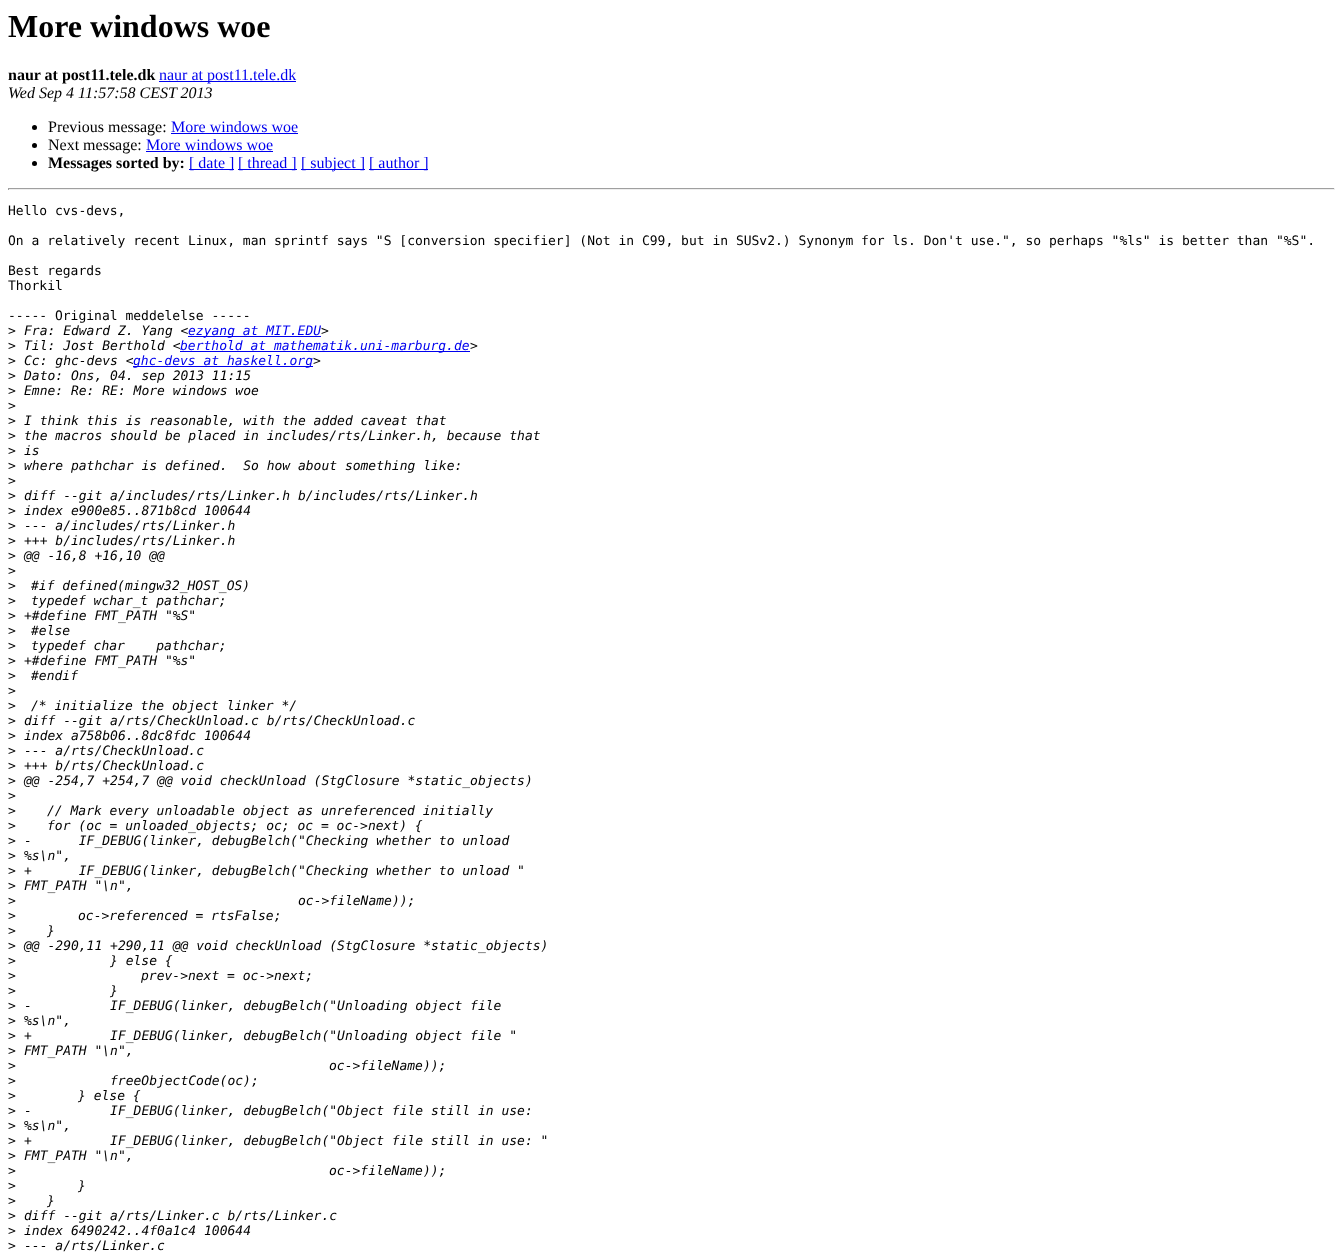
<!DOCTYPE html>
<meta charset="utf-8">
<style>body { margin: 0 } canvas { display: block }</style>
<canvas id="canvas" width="1343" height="1259"></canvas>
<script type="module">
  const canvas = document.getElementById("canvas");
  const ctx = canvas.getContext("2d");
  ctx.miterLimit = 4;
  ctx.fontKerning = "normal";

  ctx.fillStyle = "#ffffff";
  ctx.fillRect(0, 0, 1343, 1259);
  ctx.font = "bold 32px Liberation Serif";
  ctx.fillStyle = "#000000";
  ctx.fillText("More windows woe", 8, 37);
  ctx.font = "bold 16px Liberation Serif";
  ctx.fillText("naur at post11.tele.dk", 8, 80);
  ctx.fillStyle = "#0000ee";
  ctx.fillRect(159, 81, 137, 1);
  ctx.font = "16px Liberation Serif";
  ctx.fillText("naur at post11.tele.dk", 159, 80);
  ctx.font = "italic 16px Liberation Serif";
  ctx.fillStyle = "#000000";
  ctx.fillText("Wed Sep 4 11:57:58 CEST 2013", 8, 98);
  ctx.beginPath();
  ctx.arc(34.5, 127.5, 2.5, 0, Math.PI * 2);
  ctx.fill();
  ctx.font = "16px Liberation Serif";
  ctx.fillText("Previous message:", 48, 132);
  ctx.fillStyle = "#0000ee";
  ctx.fillText("More windows woe", 171, 132);
  ctx.fillRect(171, 133, 127, 1);
  ctx.fillStyle = "#000000";
  ctx.beginPath();
  ctx.arc(34.5, 145.5, 2.5, 0, Math.PI * 2);
  ctx.fill();
  ctx.fillText("Next message:", 48, 150);
  ctx.fillStyle = "#0000ee";
  ctx.fillText("More windows woe", 146, 150);
  ctx.fillRect(146, 151, 127, 1);
  ctx.fillStyle = "#000000";
  ctx.beginPath();
  ctx.arc(34.5, 163.5, 2.5, 0, Math.PI * 2);
  ctx.fill();
  ctx.font = "bold 16px Liberation Serif";
  ctx.fillText("Messages sorted by:", 48, 168);
  ctx.fillStyle = "#0000ee";
  ctx.fillRect(189, 169, 45, 1);
  ctx.font = "16px Liberation Serif";
  ctx.fillText("[ date ]", 189, 168);
  ctx.fillRect(238, 169, 59, 1);
  ctx.fillText("[ thread ]", 238, 168);
  ctx.fillRect(301, 169, 64, 1);
  ctx.fillText("[ subject ]", 301, 168);
  ctx.fillRect(369, 169, 59, 1);
  ctx.fillText("[ author ]", 369, 168);
  ctx.fillStyle = "#9f9f9f";
  ctx.fillRect(8, 188, 1327, 1);
  ctx.fillStyle = "#eeeeee";
  ctx.fillRect(1334, 188, 1, 2);
  ctx.fillRect(8, 189, 1327, 1);
  ctx.fillStyle = "#9f9f9f";
  ctx.fillRect(8, 188, 1, 2);
  ctx.font = "13px DejaVu Sans Mono";
  ctx.fillStyle = "#000000";
  ctx.fillText("Hello cvs-devs,", 8, 215);
  ctx.fillText("On a relatively recent Linux, man sprintf says \"S [conversion specifier] (Not in C99, but in SUSv2.) Synonym for ls. Don't use.\", so perhaps \"%ls\" is better than \"%S\".", 8, 245);
  ctx.fillText("Best regards", 8, 275);
  ctx.fillText("Thorkil", 8, 290);
  ctx.fillText("----- Original meddelelse -----", 8, 320);
  ctx.fillText(">", 8, 335);
  ctx.font = "italic 13px DejaVu Sans Mono";
  ctx.fillText("Fra: Edward Z. Yang <", 24, 335);
  ctx.fillStyle = "#0000ee";
  ctx.fillRect(188, 336, 133, 1);
  ctx.fillText("ezyang at MIT.EDU", 188, 335);
  ctx.fillStyle = "#000000";
  ctx.fillText(">", 321, 335);
  ctx.font = "13px DejaVu Sans Mono";
  ctx.fillText(">", 8, 350);
  ctx.font = "italic 13px DejaVu Sans Mono";
  ctx.fillText("Til: Jost Berthold <", 24, 350);
  ctx.fillStyle = "#0000ee";
  ctx.fillRect(180, 351, 290, 1);
  ctx.fillText("berthold at mathematik.uni-marburg.de", 180, 350);
  ctx.fillStyle = "#000000";
  ctx.fillText(">", 470, 350);
  ctx.font = "13px DejaVu Sans Mono";
  ctx.fillText(">", 8, 365);
  ctx.font = "italic 13px DejaVu Sans Mono";
  ctx.fillText("Cc: ghc-devs <", 24, 365);
  ctx.fillStyle = "#0000ee";
  ctx.fillRect(133, 366, 180, 1);
  ctx.fillText("ghc-devs at haskell.org", 133, 365);
  ctx.fillStyle = "#000000";
  ctx.fillText(">", 313, 365);
  ctx.font = "13px DejaVu Sans Mono";
  ctx.fillText(">", 8, 380);
  ctx.font = "italic 13px DejaVu Sans Mono";
  ctx.fillText("Dato: Ons, 04. sep 2013 11:15", 24, 380);
  ctx.font = "13px DejaVu Sans Mono";
  ctx.fillText(">", 8, 395);
  ctx.font = "italic 13px DejaVu Sans Mono";
  ctx.fillText("Emne: Re: RE: More windows woe", 24, 395);
  ctx.font = "13px DejaVu Sans Mono";
  ctx.fillText(">", 8, 410);
  ctx.fillText(">", 8, 425);
  ctx.font = "italic 13px DejaVu Sans Mono";
  ctx.fillText("I think this is reasonable, with the added caveat that", 24, 425);
  ctx.font = "13px DejaVu Sans Mono";
  ctx.fillText(">", 8, 440);
  ctx.font = "italic 13px DejaVu Sans Mono";
  ctx.fillText("the macros should be placed in includes/rts/Linker.h, because that", 24, 440);
  ctx.font = "13px DejaVu Sans Mono";
  ctx.fillText(">", 8, 455);
  ctx.font = "italic 13px DejaVu Sans Mono";
  ctx.fillText("is", 24, 455);
  ctx.font = "13px DejaVu Sans Mono";
  ctx.fillText(">", 8, 470);
  ctx.font = "italic 13px DejaVu Sans Mono";
  ctx.fillText("where pathchar is defined.  So how about something like:", 24, 470);
  ctx.font = "13px DejaVu Sans Mono";
  ctx.fillText(">", 8, 485);
  ctx.fillText(">", 8, 500);
  ctx.font = "italic 13px DejaVu Sans Mono";
  ctx.fillText("diff --git a/includes/rts/Linker.h b/includes/rts/Linker.h", 24, 500);
  ctx.font = "13px DejaVu Sans Mono";
  ctx.fillText(">", 8, 515);
  ctx.font = "italic 13px DejaVu Sans Mono";
  ctx.fillText("index e900e85..871b8cd 100644", 24, 515);
  ctx.font = "13px DejaVu Sans Mono";
  ctx.fillText(">", 8, 530);
  ctx.font = "italic 13px DejaVu Sans Mono";
  ctx.fillText("--- a/includes/rts/Linker.h", 24, 530);
  ctx.font = "13px DejaVu Sans Mono";
  ctx.fillText(">", 8, 545);
  ctx.font = "italic 13px DejaVu Sans Mono";
  ctx.fillText("+++ b/includes/rts/Linker.h", 24, 545);
  ctx.font = "13px DejaVu Sans Mono";
  ctx.fillText(">", 8, 560);
  ctx.font = "italic 13px DejaVu Sans Mono";
  ctx.fillText("@@ -16,8 +16,10 @@", 24, 560);
  ctx.font = "13px DejaVu Sans Mono";
  ctx.fillText(">", 8, 575);
  ctx.fillText(">", 8, 590);
  ctx.font = "italic 13px DejaVu Sans Mono";
  ctx.fillText("#if defined(mingw32_HOST_OS)", 31, 590);
  ctx.font = "13px DejaVu Sans Mono";
  ctx.fillText(">", 8, 605);
  ctx.font = "italic 13px DejaVu Sans Mono";
  ctx.fillText("typedef wchar_t pathchar;", 31, 605);
  ctx.font = "13px DejaVu Sans Mono";
  ctx.fillText(">", 8, 620);
  ctx.font = "italic 13px DejaVu Sans Mono";
  ctx.fillText("+#define FMT_PATH \"%S\"", 24, 620);
  ctx.font = "13px DejaVu Sans Mono";
  ctx.fillText(">", 8, 635);
  ctx.font = "italic 13px DejaVu Sans Mono";
  ctx.fillText("#else", 31, 635);
  ctx.font = "13px DejaVu Sans Mono";
  ctx.fillText(">", 8, 650);
  ctx.font = "italic 13px DejaVu Sans Mono";
  ctx.fillText("typedef char    pathchar;", 31, 650);
  ctx.font = "13px DejaVu Sans Mono";
  ctx.fillText(">", 8, 665);
  ctx.font = "italic 13px DejaVu Sans Mono";
  ctx.fillText("+#define FMT_PATH \"%s\"", 24, 665);
  ctx.font = "13px DejaVu Sans Mono";
  ctx.fillText(">", 8, 680);
  ctx.font = "italic 13px DejaVu Sans Mono";
  ctx.fillText("#endif", 31, 680);
  ctx.font = "13px DejaVu Sans Mono";
  ctx.fillText(">", 8, 695);
  ctx.fillText(">", 8, 710);
  ctx.font = "italic 13px DejaVu Sans Mono";
  ctx.fillText("/* initialize the object linker */", 31, 710);
  ctx.font = "13px DejaVu Sans Mono";
  ctx.fillText(">", 8, 725);
  ctx.font = "italic 13px DejaVu Sans Mono";
  ctx.fillText("diff --git a/rts/CheckUnload.c b/rts/CheckUnload.c", 24, 725);
  ctx.font = "13px DejaVu Sans Mono";
  ctx.fillText(">", 8, 740);
  ctx.font = "italic 13px DejaVu Sans Mono";
  ctx.fillText("index a758b06..8dc8fdc 100644", 24, 740);
  ctx.font = "13px DejaVu Sans Mono";
  ctx.fillText(">", 8, 755);
  ctx.font = "italic 13px DejaVu Sans Mono";
  ctx.fillText("--- a/rts/CheckUnload.c", 24, 755);
  ctx.font = "13px DejaVu Sans Mono";
  ctx.fillText(">", 8, 770);
  ctx.font = "italic 13px DejaVu Sans Mono";
  ctx.fillText("+++ b/rts/CheckUnload.c", 24, 770);
  ctx.font = "13px DejaVu Sans Mono";
  ctx.fillText(">", 8, 785);
  ctx.font = "italic 13px DejaVu Sans Mono";
  ctx.fillText("@@ -254,7 +254,7 @@ void checkUnload (StgClosure *static_objects)", 24, 785);
  ctx.font = "13px DejaVu Sans Mono";
  ctx.fillText(">", 8, 800);
  ctx.fillText(">", 8, 815);
  ctx.font = "italic 13px DejaVu Sans Mono";
  ctx.fillText("// Mark every unloadable object as unreferenced initially", 47, 815);
  ctx.font = "13px DejaVu Sans Mono";
  ctx.fillText(">", 8, 830);
  ctx.font = "italic 13px DejaVu Sans Mono";
  ctx.fillText("for (oc = unloaded_objects; oc; oc = oc->next) {", 47, 830);
  ctx.font = "13px DejaVu Sans Mono";
  ctx.fillText(">", 8, 845);
  ctx.font = "italic 13px DejaVu Sans Mono";
  ctx.fillText("-      IF_DEBUG(linker, debugBelch(\"Checking whether to unload", 24, 845);
  ctx.font = "13px DejaVu Sans Mono";
  ctx.fillText(">", 8, 860);
  ctx.font = "italic 13px DejaVu Sans Mono";
  ctx.fillText("%s\\n\",", 24, 860);
  ctx.font = "13px DejaVu Sans Mono";
  ctx.fillText(">", 8, 875);
  ctx.font = "italic 13px DejaVu Sans Mono";
  ctx.fillText("+      IF_DEBUG(linker, debugBelch(\"Checking whether to unload \"", 24, 875);
  ctx.font = "13px DejaVu Sans Mono";
  ctx.fillText(">", 8, 890);
  ctx.font = "italic 13px DejaVu Sans Mono";
  ctx.fillText("FMT_PATH \"\\n\",", 24, 890);
  ctx.font = "13px DejaVu Sans Mono";
  ctx.fillText(">", 8, 905);
  ctx.font = "italic 13px DejaVu Sans Mono";
  ctx.fillText("oc->fileName));", 298, 905);
  ctx.font = "13px DejaVu Sans Mono";
  ctx.fillText(">", 8, 920);
  ctx.font = "italic 13px DejaVu Sans Mono";
  ctx.fillText("oc->referenced = rtsFalse;", 78, 920);
  ctx.font = "13px DejaVu Sans Mono";
  ctx.fillText(">", 8, 935);
  ctx.font = "italic 13px DejaVu Sans Mono";
  ctx.fillText("}", 47, 935);
  ctx.font = "13px DejaVu Sans Mono";
  ctx.fillText(">", 8, 950);
  ctx.font = "italic 13px DejaVu Sans Mono";
  ctx.fillText("@@ -290,11 +290,11 @@ void checkUnload (StgClosure *static_objects)", 24, 950);
  ctx.font = "13px DejaVu Sans Mono";
  ctx.fillText(">", 8, 965);
  ctx.font = "italic 13px DejaVu Sans Mono";
  ctx.fillText("} else {", 110, 965);
  ctx.font = "13px DejaVu Sans Mono";
  ctx.fillText(">", 8, 980);
  ctx.font = "italic 13px DejaVu Sans Mono";
  ctx.fillText("prev->next = oc->next;", 141, 980);
  ctx.font = "13px DejaVu Sans Mono";
  ctx.fillText(">", 8, 995);
  ctx.font = "italic 13px DejaVu Sans Mono";
  ctx.fillText("}", 110, 995);
  ctx.font = "13px DejaVu Sans Mono";
  ctx.fillText(">", 8, 1010);
  ctx.font = "italic 13px DejaVu Sans Mono";
  ctx.fillText("-          IF_DEBUG(linker, debugBelch(\"Unloading object file", 24, 1010);
  ctx.font = "13px DejaVu Sans Mono";
  ctx.fillText(">", 8, 1025);
  ctx.font = "italic 13px DejaVu Sans Mono";
  ctx.fillText("%s\\n\",", 24, 1025);
  ctx.font = "13px DejaVu Sans Mono";
  ctx.fillText(">", 8, 1040);
  ctx.font = "italic 13px DejaVu Sans Mono";
  ctx.fillText("+          IF_DEBUG(linker, debugBelch(\"Unloading object file \"", 24, 1040);
  ctx.font = "13px DejaVu Sans Mono";
  ctx.fillText(">", 8, 1055);
  ctx.font = "italic 13px DejaVu Sans Mono";
  ctx.fillText("FMT_PATH \"\\n\",", 24, 1055);
  ctx.font = "13px DejaVu Sans Mono";
  ctx.fillText(">", 8, 1070);
  ctx.font = "italic 13px DejaVu Sans Mono";
  ctx.fillText("oc->fileName));", 329, 1070);
  ctx.font = "13px DejaVu Sans Mono";
  ctx.fillText(">", 8, 1085);
  ctx.font = "italic 13px DejaVu Sans Mono";
  ctx.fillText("freeObjectCode(oc);", 110, 1085);
  ctx.font = "13px DejaVu Sans Mono";
  ctx.fillText(">", 8, 1100);
  ctx.font = "italic 13px DejaVu Sans Mono";
  ctx.fillText("} else {", 78, 1100);
  ctx.font = "13px DejaVu Sans Mono";
  ctx.fillText(">", 8, 1115);
  ctx.font = "italic 13px DejaVu Sans Mono";
  ctx.fillText("-          IF_DEBUG(linker, debugBelch(\"Object file still in use:", 24, 1115);
  ctx.font = "13px DejaVu Sans Mono";
  ctx.fillText(">", 8, 1130);
  ctx.font = "italic 13px DejaVu Sans Mono";
  ctx.fillText("%s\\n\",", 24, 1130);
  ctx.font = "13px DejaVu Sans Mono";
  ctx.fillText(">", 8, 1145);
  ctx.font = "italic 13px DejaVu Sans Mono";
  ctx.fillText("+          IF_DEBUG(linker, debugBelch(\"Object file still in use: \"", 24, 1145);
  ctx.font = "13px DejaVu Sans Mono";
  ctx.fillText(">", 8, 1160);
  ctx.font = "italic 13px DejaVu Sans Mono";
  ctx.fillText("FMT_PATH \"\\n\",", 24, 1160);
  ctx.font = "13px DejaVu Sans Mono";
  ctx.fillText(">", 8, 1175);
  ctx.font = "italic 13px DejaVu Sans Mono";
  ctx.fillText("oc->fileName));", 329, 1175);
  ctx.font = "13px DejaVu Sans Mono";
  ctx.fillText(">", 8, 1190);
  ctx.font = "italic 13px DejaVu Sans Mono";
  ctx.fillText("}", 78, 1190);
  ctx.font = "13px DejaVu Sans Mono";
  ctx.fillText(">", 8, 1205);
  ctx.font = "italic 13px DejaVu Sans Mono";
  ctx.fillText("}", 47, 1205);
  ctx.font = "13px DejaVu Sans Mono";
  ctx.fillText(">", 8, 1220);
  ctx.font = "italic 13px DejaVu Sans Mono";
  ctx.fillText("diff --git a/rts/Linker.c b/rts/Linker.c", 24, 1220);
  ctx.font = "13px DejaVu Sans Mono";
  ctx.fillText(">", 8, 1235);
  ctx.font = "italic 13px DejaVu Sans Mono";
  ctx.fillText("index 6490242..4f0a1c4 100644", 24, 1235);
  ctx.font = "13px DejaVu Sans Mono";
  ctx.fillText(">", 8, 1250);
  ctx.font = "italic 13px DejaVu Sans Mono";
  ctx.fillText("--- a/rts/Linker.c", 24, 1250);
</script>
